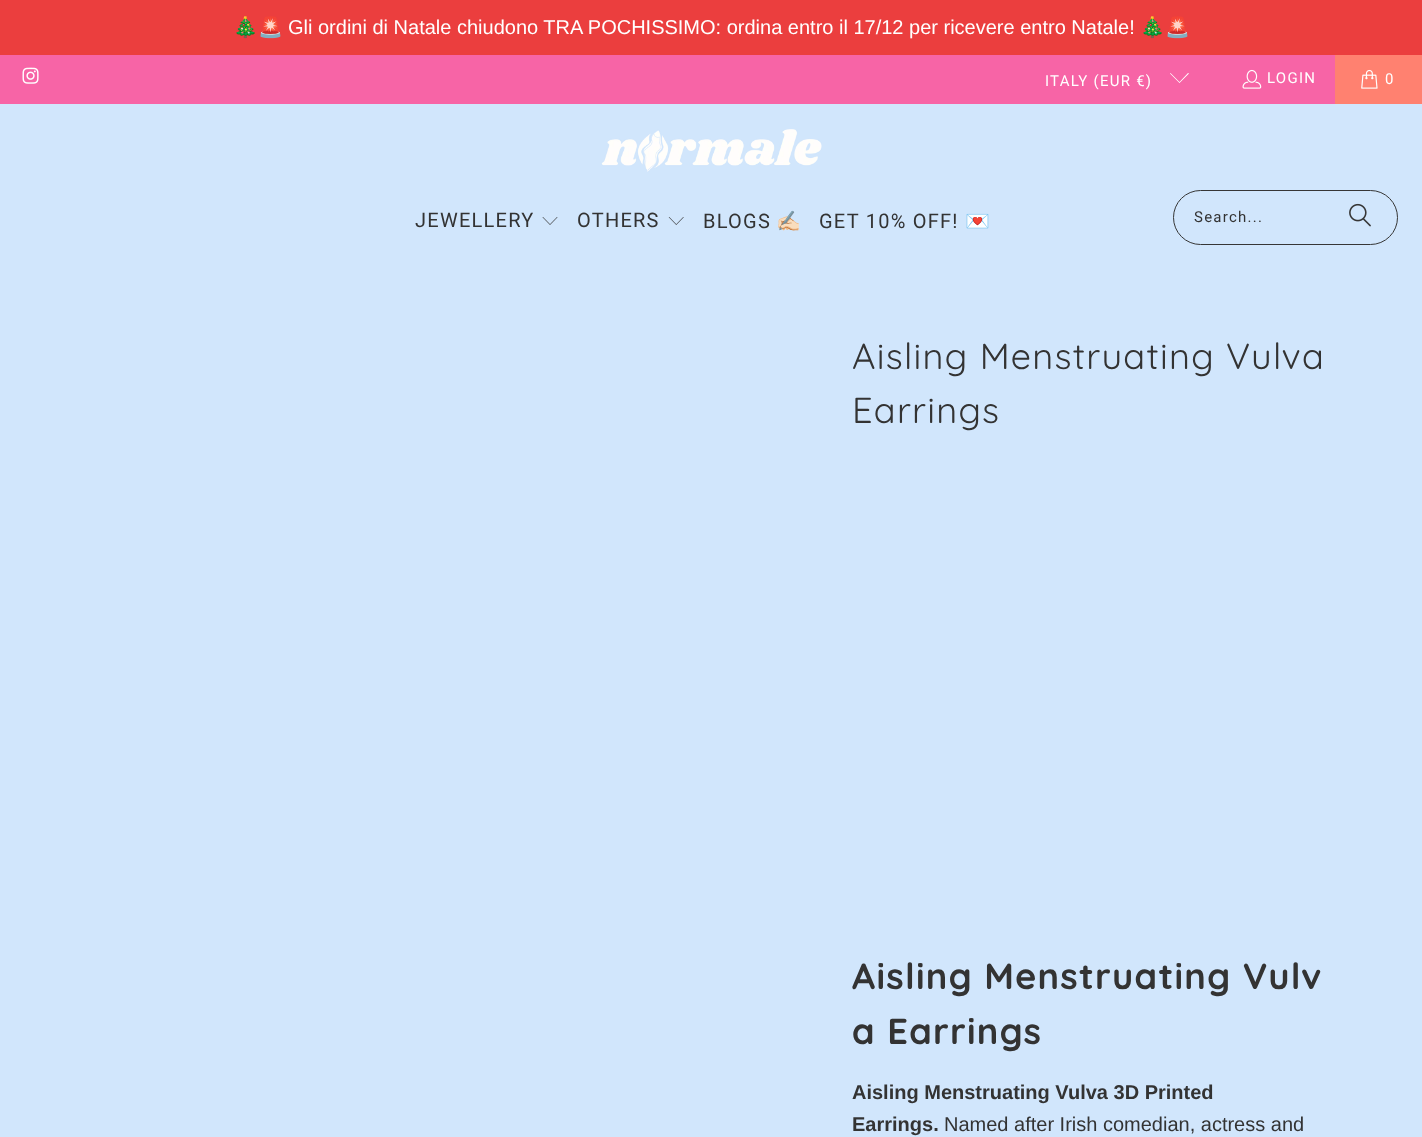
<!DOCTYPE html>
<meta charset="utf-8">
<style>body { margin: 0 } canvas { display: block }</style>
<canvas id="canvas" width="1422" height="1137"></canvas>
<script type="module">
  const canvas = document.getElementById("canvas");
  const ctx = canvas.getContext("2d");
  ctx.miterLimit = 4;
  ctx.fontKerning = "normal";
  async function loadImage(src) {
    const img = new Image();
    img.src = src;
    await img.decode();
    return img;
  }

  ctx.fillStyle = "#d1e6fc";
  ctx.fillRect(0, 0, 1422, 1137);
  ctx.fillStyle = "#eb3e3e";
  ctx.fillRect(0, 0, 1422, 55);
  ctx.font = "20px Noto Color Emoji";
  ctx.fillStyle = "#ffffff";
  ctx.fillText("🎄🚨", 233, 34);
  ctx.font = "20px Liberation Sans";
  ctx.fillText("Gli ordini di Natale chiudono TRA POCHISSIMO: ordina entro il 17/12 per ricevere entro Natale!", 288, 34);
  ctx.font = "20px Noto Color Emoji";
  ctx.fillText("🎄🚨", 1140, 34);
  ctx.fillStyle = "#f764a6";
  ctx.fillRect(0, 55, 1335, 49);
  ctx.drawImage(await loadImage("img1.png"), 22, 67, 17, 17);
  ctx.letterSpacing = "1.25px";
  ctx.font = "15px Roboto";
  ctx.fillStyle = "#ffffff";
  ctx.fillText("ITALY (EUR €)", 1045, 86);
  ctx.beginPath();
  ctx.moveTo(1179.5, 83);
  ctx.lineTo(1170, 73.5);
  ctx.lineTo(1170.5, 73);
  ctx.lineTo(1179.5, 82);
  ctx.lineTo(1188, 73);
  ctx.lineTo(1189, 73.5);
  ctx.closePath();
  ctx.fill();
  ctx.drawImage(await loadImage("img2.png"), 1242, 69, 20, 20);
  ctx.fillText("LOGIN", 1267, 83);
  ctx.fillStyle = "#ff8170";
  ctx.fillRect(1335, 55, 87, 49);
  ctx.drawImage(await loadImage("img3.png"), 1361, 69, 17, 20);
  ctx.fillStyle = "#ffffff";
  ctx.fillText("0", 1385, 84);
  ctx.drawImage(await loadImage("img4.png"), 601, 129, 221, 43);
  ctx.font = "20px Roboto";
  ctx.fillStyle = "#333333";
  ctx.fillText("JEWELLERY", 415, 227);
  ctx.drawImage(await loadImage("img5.png"), 542, 217, 16, 8);
  ctx.fillText("OTHERS", 577, 227);
  ctx.drawImage(await loadImage("img6.png"), 668, 217, 16, 8);
  ctx.fillText("BLOGS", 703, 228);
  ctx.font = "20px Noto Color Emoji";
  ctx.fillText("✍🏻", 776, 228);
  ctx.font = "20px Roboto";
  ctx.fillText("GET 10% OFF!", 819, 228);
  ctx.font = "20px Noto Color Emoji";
  ctx.fillText("💌", 965, 228);
  ctx.beginPath();
  ctx.roundRect(1173.5, 190.5, 224, 54, 27);
  ctx.strokeStyle = "#363636";
  ctx.stroke();
  ctx.font = "15px Roboto";
  ctx.fillText("Search...", 1194, 222);
  ctx.drawImage(await loadImage("img7.png"), 1349, 203, 22, 24);
  ctx.font = "36.25px Quicksand";
  ctx.fillText("Aisling Menstruating Vulva", 852, 369);
  ctx.fillText("Earrings", 852, 423);
  ctx.font = "bold 36.25px Quicksand";
  ctx.fillText("Aisling Menstruating Vulv", 852, 989);
  ctx.fillText("a Earrings", 852, 1044);
  ctx.letterSpacing = "0px";
  ctx.font = "bold 20px Liberation Sans";
  ctx.fillText("Aisling Menstruating Vulva 3D Printed", 852, 1099);
  ctx.fillText("Earrings.", 852, 1131);
  ctx.font = "20px Liberation Sans";
  ctx.fillText("Named after Irish comedian, actress and", 944, 1131);
</script>
